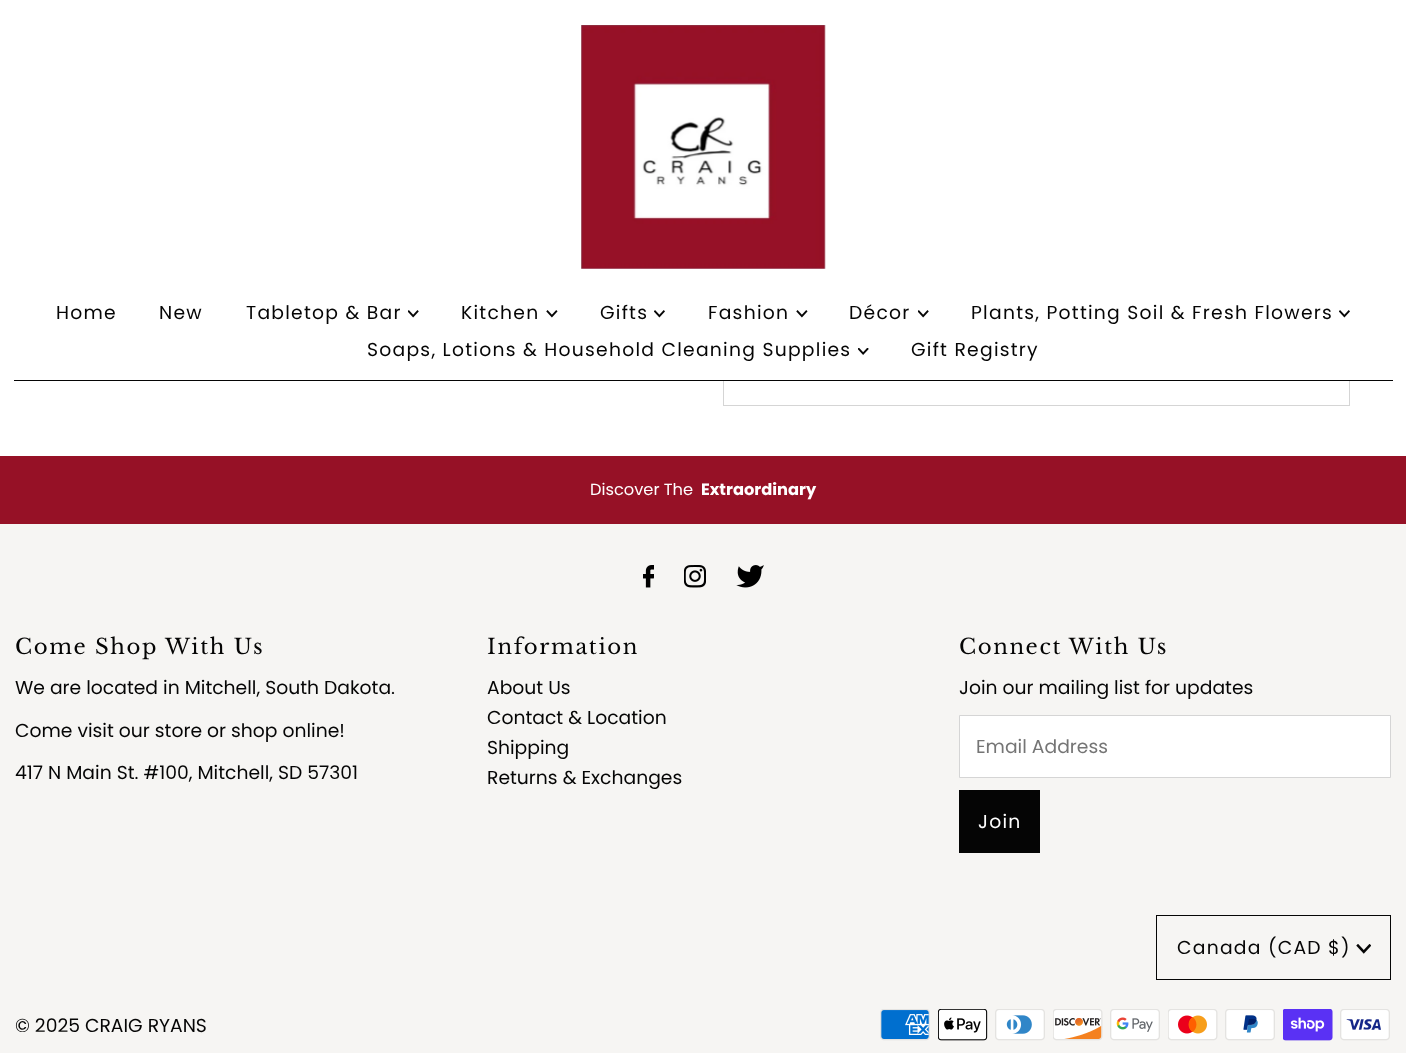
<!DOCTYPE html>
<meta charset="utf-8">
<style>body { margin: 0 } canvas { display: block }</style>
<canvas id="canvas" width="1406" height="1053"></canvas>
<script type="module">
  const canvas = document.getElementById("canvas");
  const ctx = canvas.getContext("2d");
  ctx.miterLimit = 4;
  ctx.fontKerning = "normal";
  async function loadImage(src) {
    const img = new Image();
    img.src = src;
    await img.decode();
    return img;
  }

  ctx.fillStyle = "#ffffff";
  ctx.fillRect(0, 0, 1406, 1053);
  ctx.strokeStyle = "#d5d5d5";
  ctx.strokeRect(723.5, -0.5, 626, 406);
  ctx.fillRect(723, 0, 627, 381);
  ctx.drawImage(await loadImage("img1.png"), 581, 25, 245, 244);
  ctx.letterSpacing = "1.25px";
  ctx.font = "18.75px Poppins";
  ctx.fillStyle = "#050505";
  ctx.fillText("Home", 56, 319);
  ctx.fillText("New", 159, 319);
  ctx.fillText("Tabletop & Bar", 246, 319);
  ctx.drawImage(await loadImage("img2.png"), 408, 310, 11, 8);
  ctx.fillText("Kitchen", 461, 319);
  ctx.drawImage(await loadImage("img3.png"), 546, 310, 12, 8);
  ctx.fillText("Gifts", 600, 319);
  ctx.drawImage(await loadImage("img4.png"), 654, 310, 11, 8);
  ctx.fillText("Fashion", 708, 319);
  ctx.drawImage(await loadImage("img3.png"), 796, 310, 12, 8);
  ctx.fillText("Décor", 849, 319);
  ctx.drawImage(await loadImage("img2.png"), 918, 310, 11, 8);
  ctx.fillText("Plants, Potting Soil & Fresh Flowers", 971, 319);
  ctx.drawImage(await loadImage("img4.png"), 1339, 310, 11, 8);
  ctx.fillText("Soaps, Lotions & Household Cleaning Supplies", 367, 356);
  ctx.drawImage(await loadImage("img5.png"), 858, 348, 11, 7);
  ctx.fillText("Gift Registry", 911, 356);
  ctx.fillRect(14, 380, 1379, 1);
  ctx.fillStyle = "#961126";
  ctx.fillRect(0, 456, 1406, 68);
  ctx.letterSpacing = "0px";
  ctx.font = "16.25px Poppins";
  ctx.fillStyle = "#ffffff";
  ctx.fillText("Discover The", 590, 495);
  ctx.font = "bold 16.25px Poppins";
  ctx.fillText("Extraordinary", 701, 495);
  ctx.fillStyle = "#f6f5f3";
  ctx.fillRect(0, 524, 1406, 529);
  ctx.drawImage(await loadImage("img6.png"), 643, 565, 11, 23);
  ctx.drawImage(await loadImage("img7.png"), 684, 565, 22, 23);
  ctx.drawImage(await loadImage("img8.png"), 736, 565, 28, 23);
  ctx.letterSpacing = "1.6px";
  ctx.font = "21.25px Libre Baskerville";
  ctx.fillStyle = "#050505";
  ctx.fillText("Come Shop With Us", 15, 654);
  ctx.letterSpacing = "0px";
  ctx.font = "18.75px Poppins";
  ctx.fillText("We are located in Mitchell, South Dakota.", 15, 694);
  ctx.fillText("Come visit our store or shop online!", 15, 737);
  ctx.fillText("417 N Main St. #100, Mitchell, SD 57301", 15, 779);
  ctx.letterSpacing = "1.6px";
  ctx.font = "21.25px Libre Baskerville";
  ctx.fillText("Information", 487, 654);
  ctx.letterSpacing = "0px";
  ctx.font = "18.75px Poppins";
  ctx.fillText("About Us", 487, 694);
  ctx.fillText("Contact & Location", 487, 724);
  ctx.fillText("Shipping", 487, 754);
  ctx.fillText("Returns & Exchanges", 487, 784);
  ctx.letterSpacing = "1.6px";
  ctx.font = "21.25px Libre Baskerville";
  ctx.fillText("Connect With Us", 959, 654);
  ctx.letterSpacing = "0px";
  ctx.font = "18.75px Poppins";
  ctx.fillText("Join our mailing list for updates", 959, 694);
  ctx.fillStyle = "#ffffff";
  ctx.beginPath();
  ctx.rect(959.5, 715.5, 431, 62);
  ctx.fill();
  ctx.stroke();
  ctx.fillStyle = "#757575";
  ctx.fillText("Email Address", 976, 753);
  ctx.fillStyle = "#050505";
  ctx.fillRect(959, 790, 81, 63);
  ctx.letterSpacing = "1.25px";
  ctx.fillStyle = "#ffffff";
  ctx.fillText("Join", 978, 828);
  ctx.strokeStyle = "#050505";
  ctx.strokeRect(1156.5, 915.5, 234, 64);
  ctx.fillStyle = "#050505";
  ctx.fillText("Canada (CAD $)", 1177, 954);
  ctx.drawImage(await loadImage("img9.png"), 1356, 944, 15, 10);
  ctx.drawImage(await loadImage("img10.png"), 880, 1009, 50, 32);
  ctx.drawImage(await loadImage("img11.png"), 938, 1009, 50, 32);
  ctx.drawImage(await loadImage("img12.png"), 995, 1009, 50, 32);
  ctx.drawImage(await loadImage("img13.png"), 1053, 1009, 50, 32);
  ctx.drawImage(await loadImage("img14.png"), 1110, 1009, 50, 32);
  ctx.drawImage(await loadImage("img15.png"), 1168, 1009, 50, 32);
  ctx.drawImage(await loadImage("img16.png"), 1225, 1009, 50, 32);
  ctx.drawImage(await loadImage("img17.png"), 1283, 1009, 50, 32);
  ctx.drawImage(await loadImage("img18.png"), 1340, 1009, 50, 32);
  ctx.letterSpacing = "0px";
  ctx.fillText("© 2025 CRAIG RYANS", 15, 1032);
</script>
